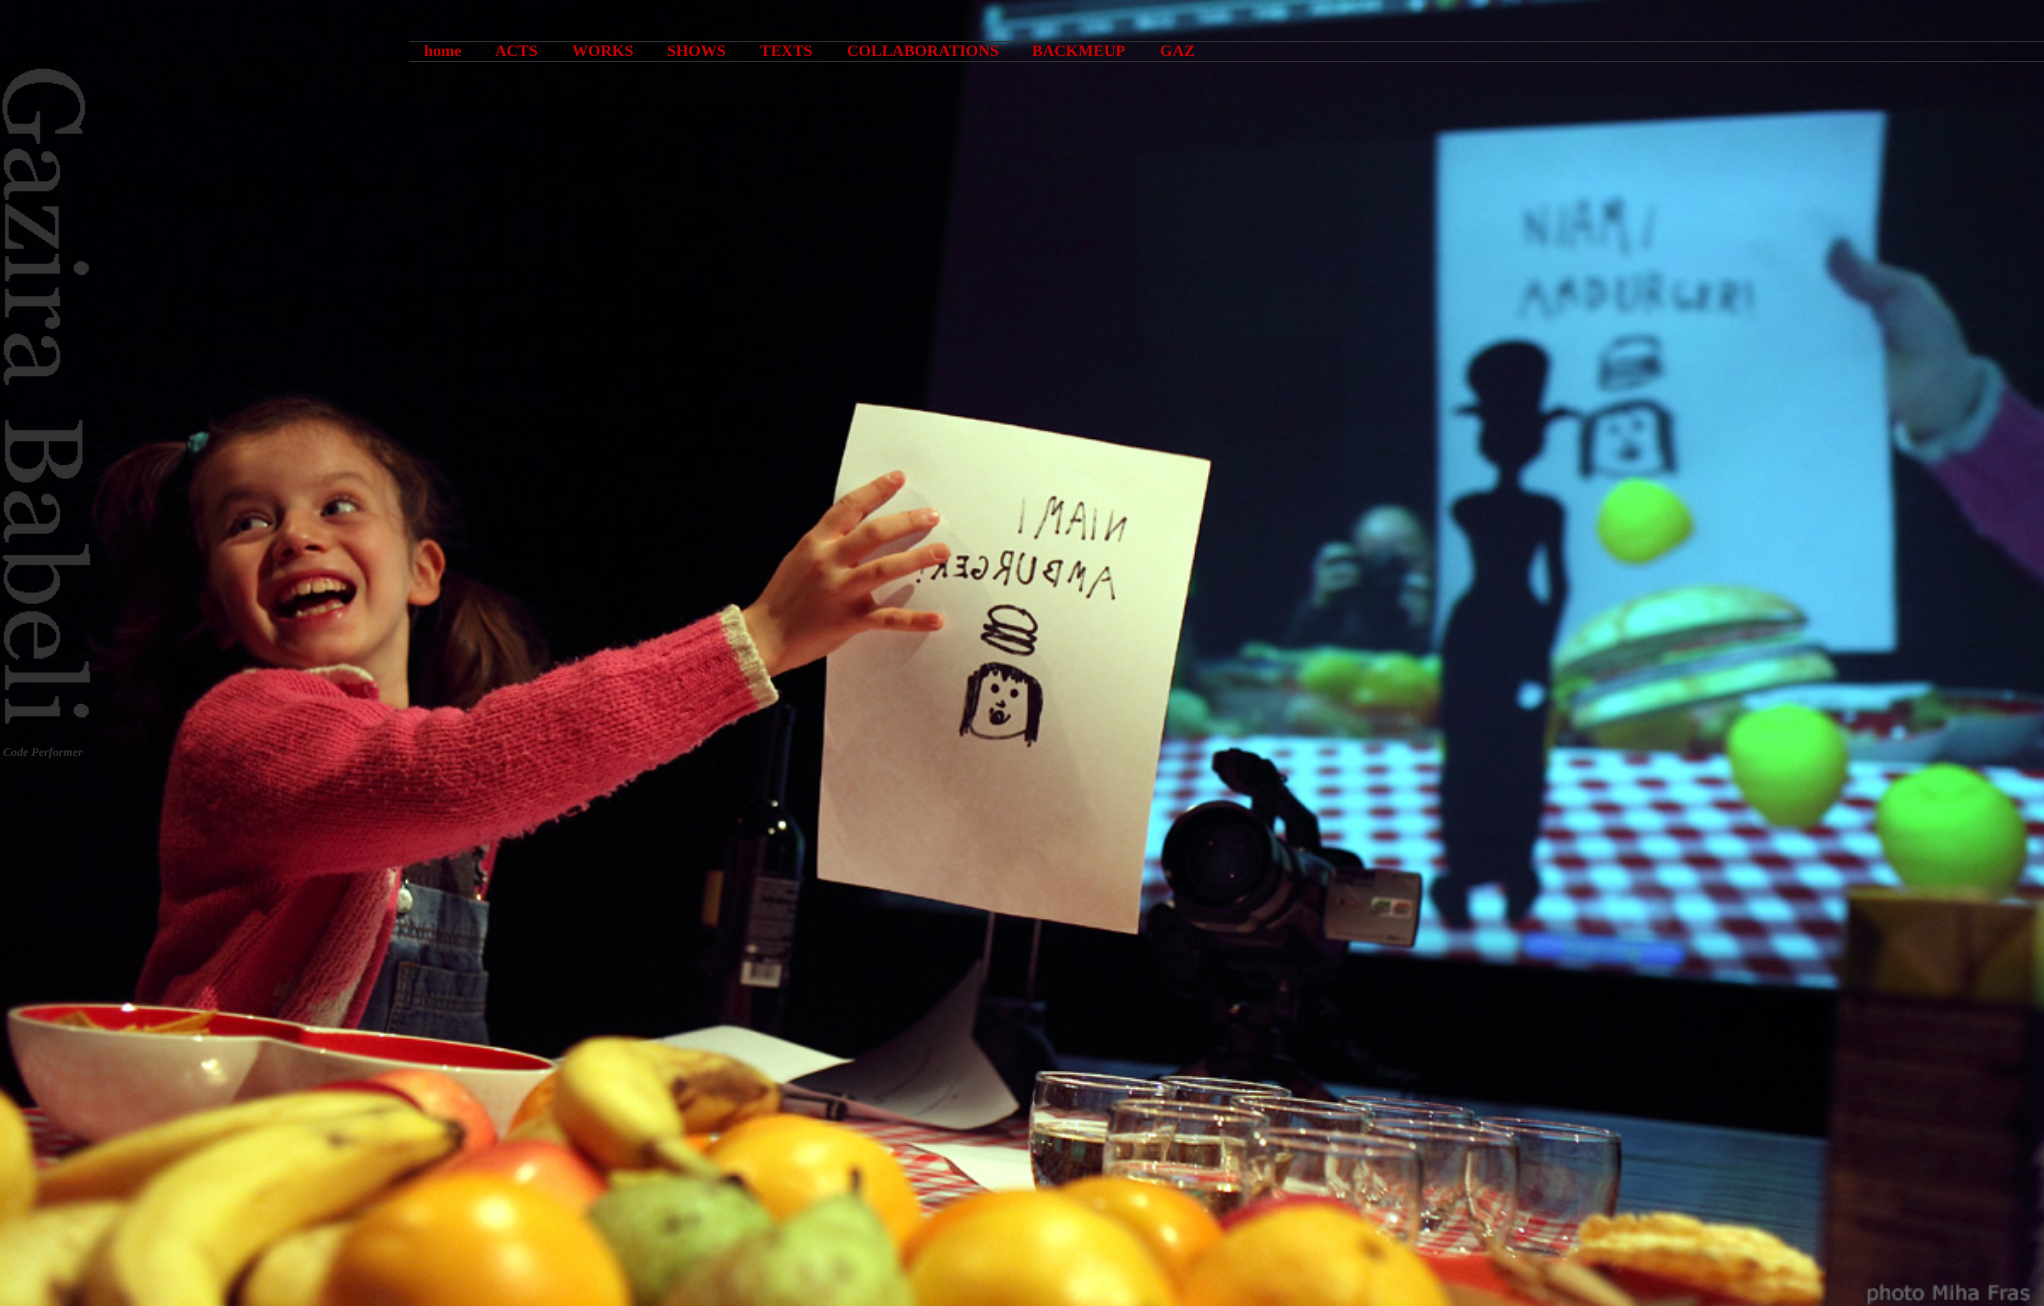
<!DOCTYPE html>
<meta charset="utf-8">
<style>body { margin: 0 } canvas { display: block }</style>
<canvas id="canvas" width="2044" height="1306"></canvas>
<script type="module">
  const canvas = document.getElementById("canvas");
  const ctx = canvas.getContext("2d");
  ctx.miterLimit = 4;
  ctx.fontKerning = "normal";
  async function loadImage(src) {
    const img = new Image();
    img.src = src;
    await img.decode();
    return img;
  }

  ctx.fillStyle = "#ffffff";
  ctx.fillRect(0, 0, 2044, 1306);
  ctx.drawImage(await loadImage("img1.png"), 0, 0, 2044, 1306);
  ctx.fillStyle = "#333333";
  ctx.fillRect(409, 41, 1635, 1);
  ctx.fillRect(409, 61, 1635, 1);
  ctx.font = "bold 16px Liberation Serif";
  ctx.fillStyle = "#cc0000";
  ctx.fillText("home", 424, 56);
  ctx.fillText("ACTS", 495, 56);
  ctx.fillText("WORKS", 572, 56);
  ctx.fillText("SHOWS", 667, 56);
  ctx.fillText("TEXTS", 760, 56);
  ctx.fillText("COLLABORATIONS", 847, 56);
  ctx.fillText("BACKMEUP", 1032, 56);
  ctx.fillText("GAZ", 1160, 56);
  ctx.drawImage(await loadImage("img2.png"), 2, 68, 89, 656);
  ctx.font = "italic bold 12px Liberation Serif";
  ctx.fillStyle = "#333333";
  ctx.fillText("Code Performer", 3, 756);
</script>
